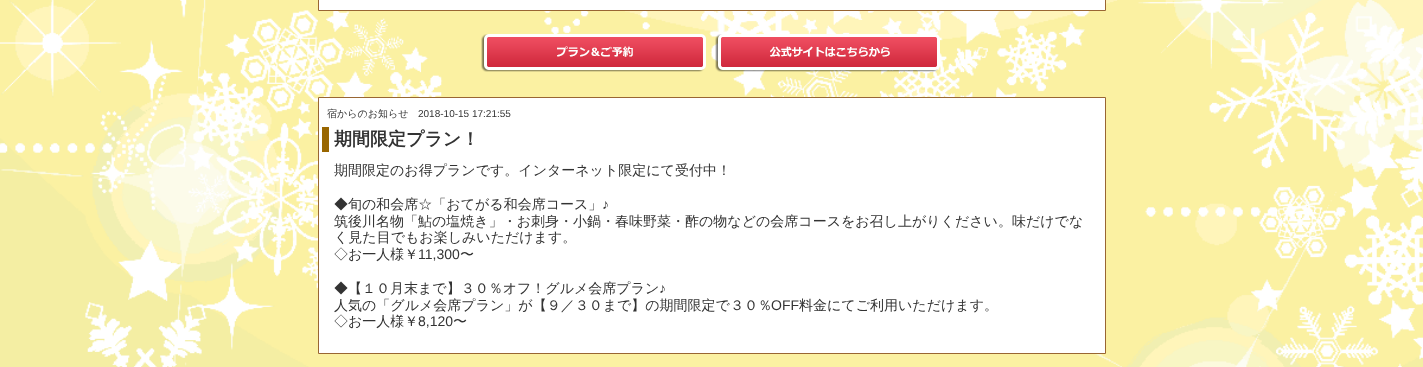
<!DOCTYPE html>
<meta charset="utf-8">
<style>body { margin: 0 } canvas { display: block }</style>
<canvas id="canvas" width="1423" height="367"></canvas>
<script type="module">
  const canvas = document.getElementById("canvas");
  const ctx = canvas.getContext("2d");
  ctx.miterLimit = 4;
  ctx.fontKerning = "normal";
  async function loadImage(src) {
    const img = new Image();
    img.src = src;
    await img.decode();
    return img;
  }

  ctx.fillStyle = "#ffffff";
  ctx.fillRect(0, 0, 1423, 367);
  ctx.drawImage(await loadImage("img1.png"), 0, 0, 1423, 367);
  ctx.beginPath();
  ctx.rect(318.5, -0.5, 787, 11);
  ctx.fill();
  ctx.strokeStyle = "#996633";
  ctx.stroke();
  ctx.drawImage(await loadImage("img2.png"), 481, 34, 225, 38);
  ctx.drawImage(await loadImage("img3.png"), 715, 34, 225, 38);
  ctx.beginPath();
  ctx.rect(318.5, 97.5, 787, 256);
  ctx.fill();
  ctx.stroke();
  ctx.font = "500 10px WenQuanYi Zen Hei";
  ctx.fillStyle = "#333333";
  ctx.fillText("宿からのお知らせ", 327, 117);
  ctx.font = "10px Liberation Sans";
  ctx.fillText("2018-10-15 17:21:55", 418, 117);
  ctx.fillStyle = "#996600";
  ctx.fillRect(322, 127, 7, 25);
  ctx.font = "bold 18px WenQuanYi Zen Hei";
  ctx.fillStyle = "#333333";
  ctx.fillText("期間限定プラン！", 334, 145);
  ctx.font = "500 14px WenQuanYi Zen Hei";
  ctx.fillText("期間限定のお得プランです。インターネット限定にて受付中！", 334, 175);
  ctx.fillText("◆旬の和会席☆「おてがる和会席コース」", 334, 209);
  ctx.font = "14px Liberation Sans";
  ctx.fillText("♪", 602, 209);
  ctx.font = "500 14px WenQuanYi Zen Hei";
  ctx.fillText("筑後川名物「鮎の塩焼き」・お刺身・小鍋・春味野菜・酢の物などの会席コースをお召し上がりください。味だけでな", 334, 226);
  ctx.fillText("く見た目でもお楽しみいただけます。", 334, 242);
  ctx.fillText("◇お一人様￥", 334, 259);
  ctx.font = "14px Liberation Sans";
  ctx.fillText("11,300", 418, 259);
  ctx.font = "500 14px WenQuanYi Zen Hei";
  ctx.fillText("〜", 460, 259);
  ctx.fillText("◆【１０月末まで】３０％オフ！グルメ会席プラン", 334, 293);
  ctx.font = "14px Liberation Sans";
  ctx.fillText("♪", 659, 293);
  ctx.font = "500 14px WenQuanYi Zen Hei";
  ctx.fillText("人気の「グルメ会席プラン」が【９／３０まで】の期間限定で３０％", 334, 310);
  ctx.font = "14px Liberation Sans";
  ctx.fillText("OFF", 771, 310);
  ctx.font = "500 14px WenQuanYi Zen Hei";
  ctx.fillText("料金にてご利用いただけます。", 799, 310);
  ctx.fillText("◇お一人様￥", 334, 326);
  ctx.font = "14px Liberation Sans";
  ctx.fillText("8,120", 418, 326);
  ctx.font = "500 14px WenQuanYi Zen Hei";
  ctx.fillText("〜", 453, 326);
</script>
